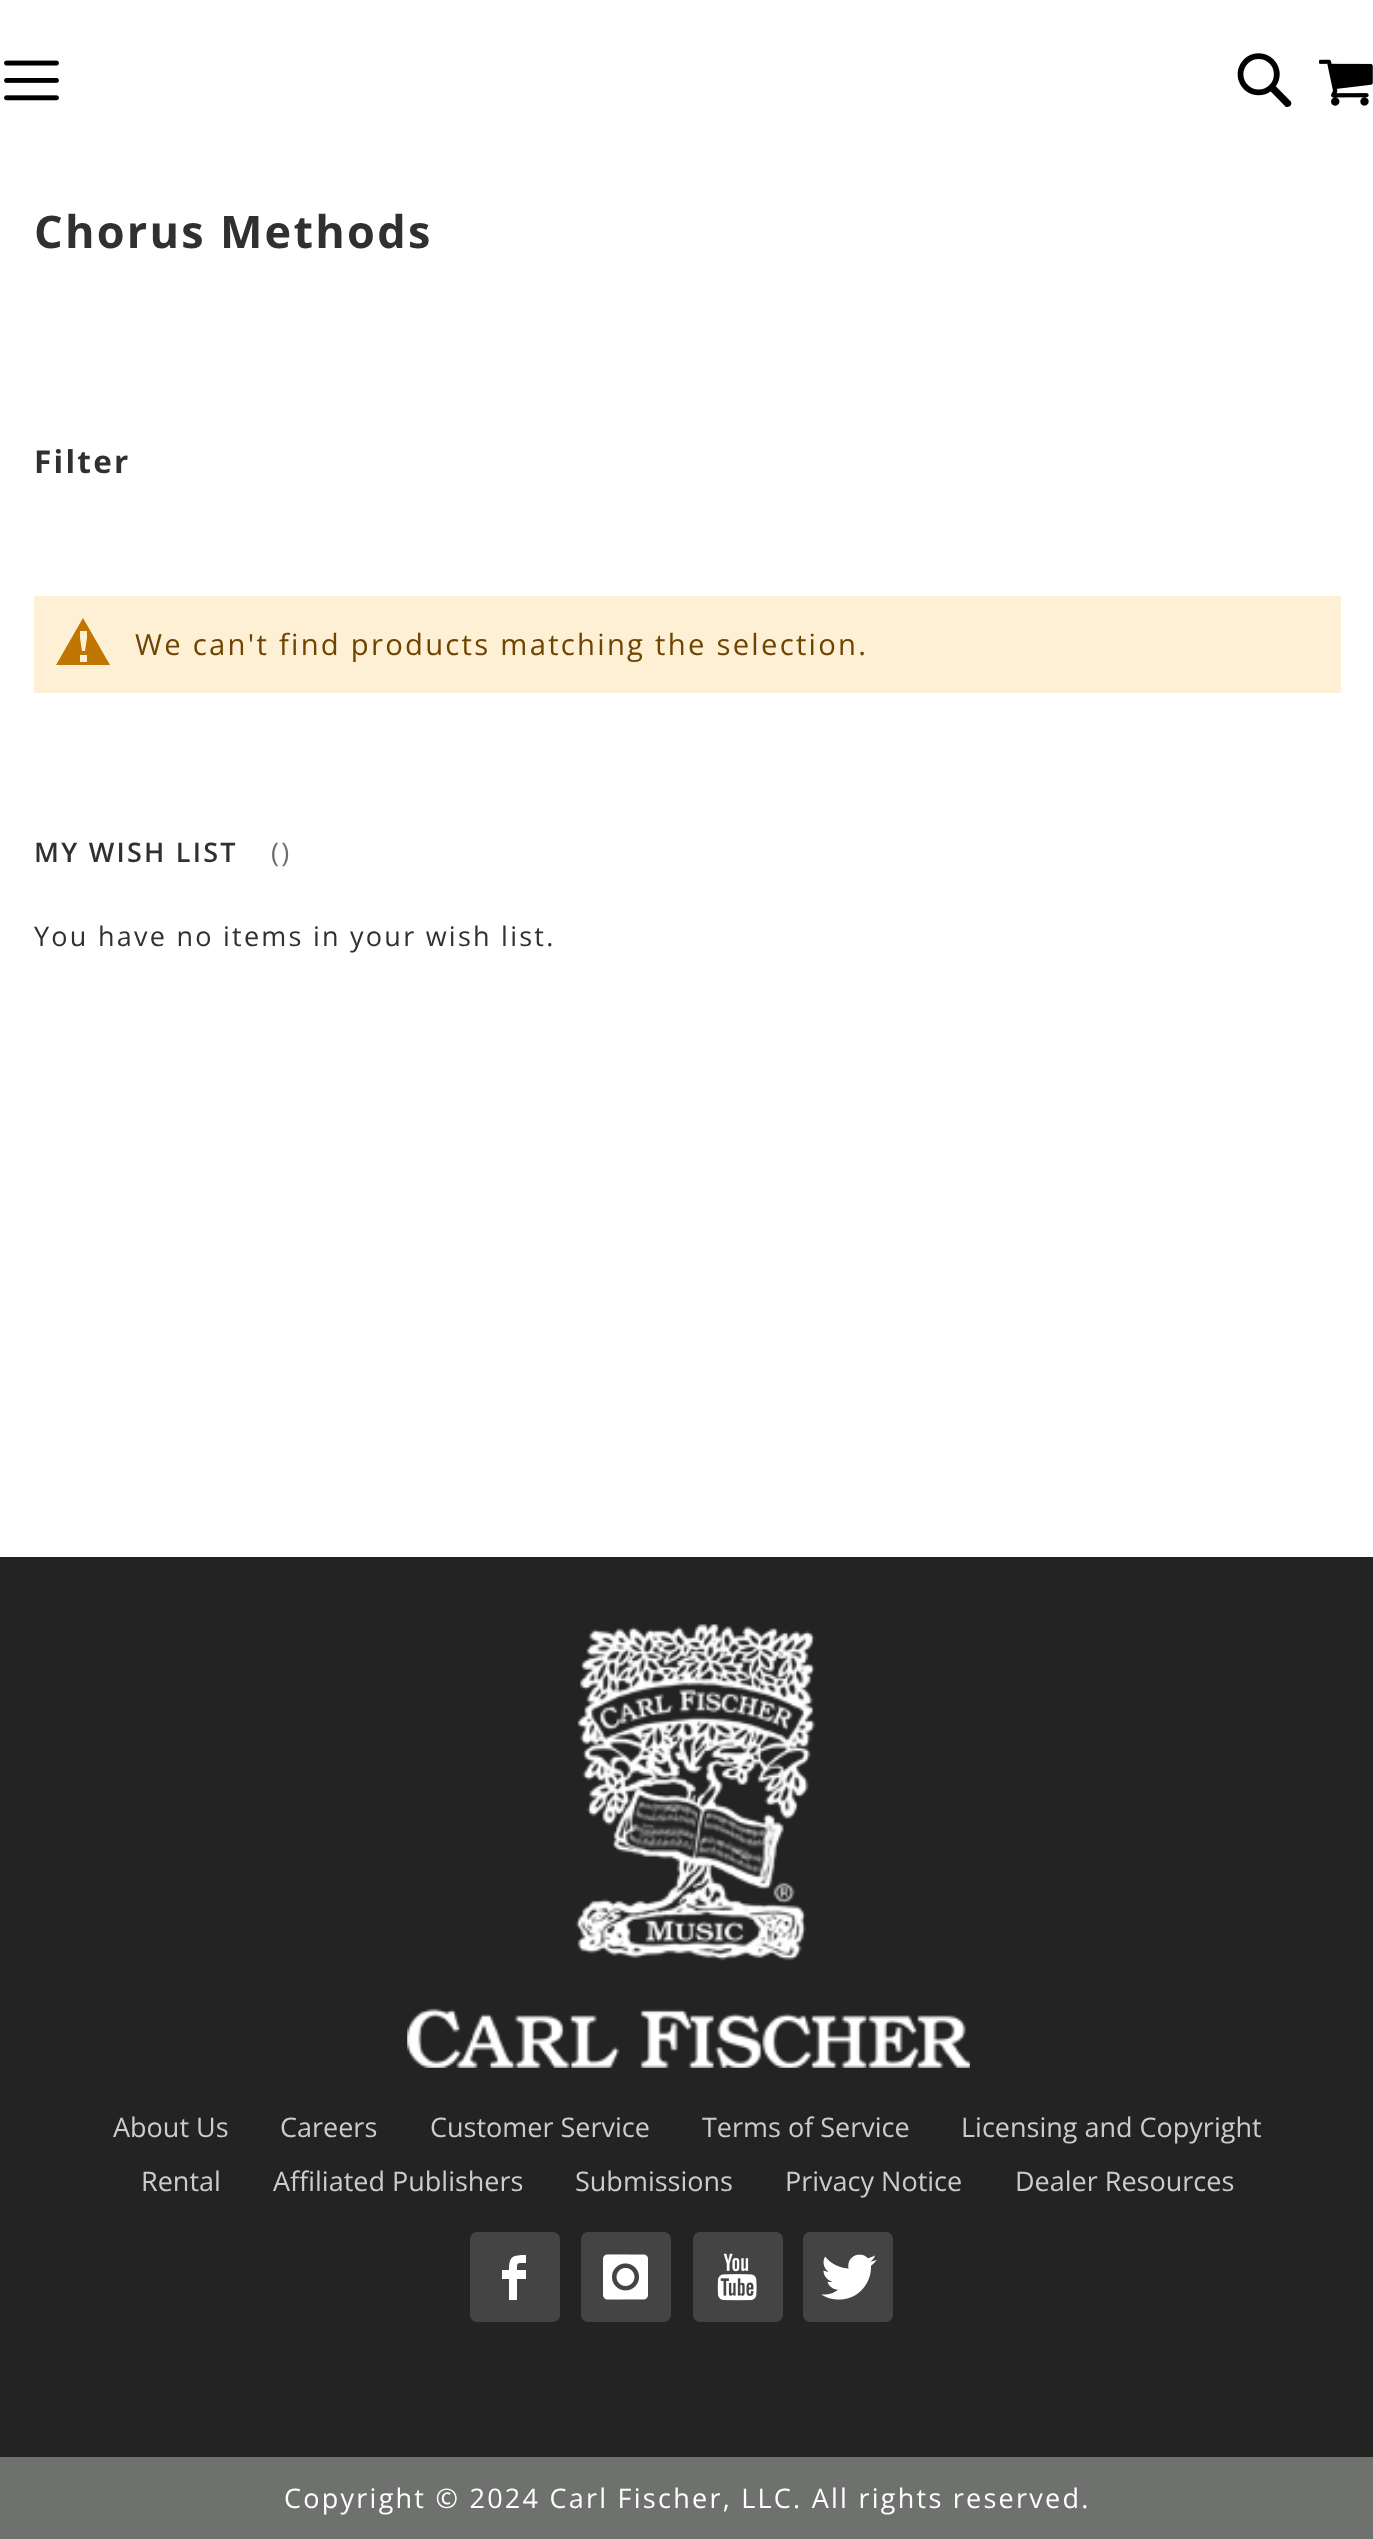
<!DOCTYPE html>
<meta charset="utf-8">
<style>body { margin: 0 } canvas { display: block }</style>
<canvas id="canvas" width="1373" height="2539"></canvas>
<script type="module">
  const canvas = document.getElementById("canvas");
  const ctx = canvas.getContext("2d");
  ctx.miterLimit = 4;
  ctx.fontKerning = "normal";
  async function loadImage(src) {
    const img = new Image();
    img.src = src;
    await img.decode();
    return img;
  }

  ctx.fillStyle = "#ffffff";
  ctx.fillRect(0, 0, 1373, 2539);
  ctx.drawImage(await loadImage("img1.png"), 4, 60, 55, 41);
  ctx.drawImage(await loadImage("img2.png"), 1237, 53, 55, 55);
  ctx.drawImage(await loadImage("img3.png"), 1319, 59, 54, 47);
  ctx.letterSpacing = "2.25px";
  ctx.font = "bold 45px Open Sans";
  ctx.fillStyle = "#303030";
  ctx.fillText("Chorus Methods", 34, 248);
  ctx.font = "bold 31.5px Open Sans";
  ctx.fillText("Filter", 34, 473);
  ctx.fillStyle = "#fdf0d5";
  ctx.fillRect(34, 596, 1307, 97);
  ctx.fillStyle = "#c07600";
  ctx.beginPath();
  ctx.moveTo(83, 618);
  ctx.lineTo(56, 665);
  ctx.lineTo(110, 665);
  ctx.closePath();
  ctx.moveTo(87, 631);
  ctx.lineTo(87, 638);
  ctx.lineTo(85, 651);
  ctx.lineTo(82, 651);
  ctx.lineTo(80, 638);
  ctx.lineTo(80, 631);
  ctx.closePath();
  ctx.moveTo(80, 662);
  ctx.lineTo(80, 655);
  ctx.lineTo(87, 655);
  ctx.lineTo(87, 662);
  ctx.closePath();
  ctx.fill();
  ctx.font = "29.25px Open Sans";
  ctx.fillStyle = "#6f4400";
  ctx.fillText("We can't find products matching the selection.", 135, 655);
  ctx.font = "600 27px Open Sans";
  ctx.fillStyle = "#303030";
  ctx.fillText("MY WISH LIST", 34, 862);
  ctx.font = "27px Open Sans";
  ctx.fillStyle = "#6d6d6d";
  ctx.fillText("()", 271, 862);
  ctx.fillStyle = "#303030";
  ctx.fillText("You have no items in your wish list.", 34, 946);
  ctx.fillStyle = "#232323";
  ctx.fillRect(0, 1557, 1373, 900);
  ctx.drawImage(await loadImage("img4.png"), 407, 1624, 563, 444);
  ctx.letterSpacing = "0px";
  ctx.fillStyle = "#cccccc";
  ctx.fillText("About Us", 113, 2137);
  ctx.fillText("Careers", 280, 2137);
  ctx.fillText("Customer Service", 430, 2137);
  ctx.fillText("Terms of Service", 702, 2137);
  ctx.fillText("Licensing and Copyright", 961, 2137);
  ctx.fillText("Rental", 141, 2191);
  ctx.fillText("Affiliated Publishers", 273, 2191);
  ctx.fillText("Submissions", 575, 2191);
  ctx.fillText("Privacy Notice", 785, 2191);
  ctx.fillText("Dealer Resources", 1015, 2191);
  ctx.fillStyle = "#444444";
  ctx.beginPath();
  ctx.roundRect(470, 2232, 90, 90, 7);
  ctx.fill();
  ctx.fillStyle = "#ffffff";
  ctx.beginPath();
  ctx.moveTo(502, 2279);
  ctx.lineTo(502, 2270);
  ctx.lineTo(509, 2270);
  ctx.bezierCurveTo(509, 2256, 513, 2255, 526, 2255);
  ctx.lineTo(526, 2263);
  ctx.bezierCurveTo(517, 2263, 517, 2262, 517, 2270);
  ctx.lineTo(526, 2270);
  ctx.lineTo(526, 2279);
  ctx.lineTo(517, 2279);
  ctx.lineTo(517, 2300);
  ctx.lineTo(509, 2300);
  ctx.lineTo(509, 2279);
  ctx.closePath();
  ctx.fill();
  ctx.fillStyle = "#444444";
  ctx.beginPath();
  ctx.roundRect(581, 2232, 90, 90, 7);
  ctx.fill();
  ctx.drawImage(await loadImage("img5.png"), 603, 2254, 45, 46);
  ctx.beginPath();
  ctx.roundRect(693, 2232, 90, 90, 7);
  ctx.fill();
  ctx.drawImage(await loadImage("img6.png"), 717, 2253, 40, 48);
  ctx.beginPath();
  ctx.roundRect(803, 2232, 90, 90, 7);
  ctx.fill();
  ctx.drawImage(await loadImage("img7.png"), 821, 2254, 56, 46);
  ctx.fillStyle = "#6e716e";
  ctx.fillRect(0, 2457, 1373, 82);
  ctx.letterSpacing = "2.25px";
  ctx.fillStyle = "#ffffff";
  ctx.fillText("Copyright © 2024 Carl Fischer, LLC. All rights reserved.", 284, 2508);
</script>
